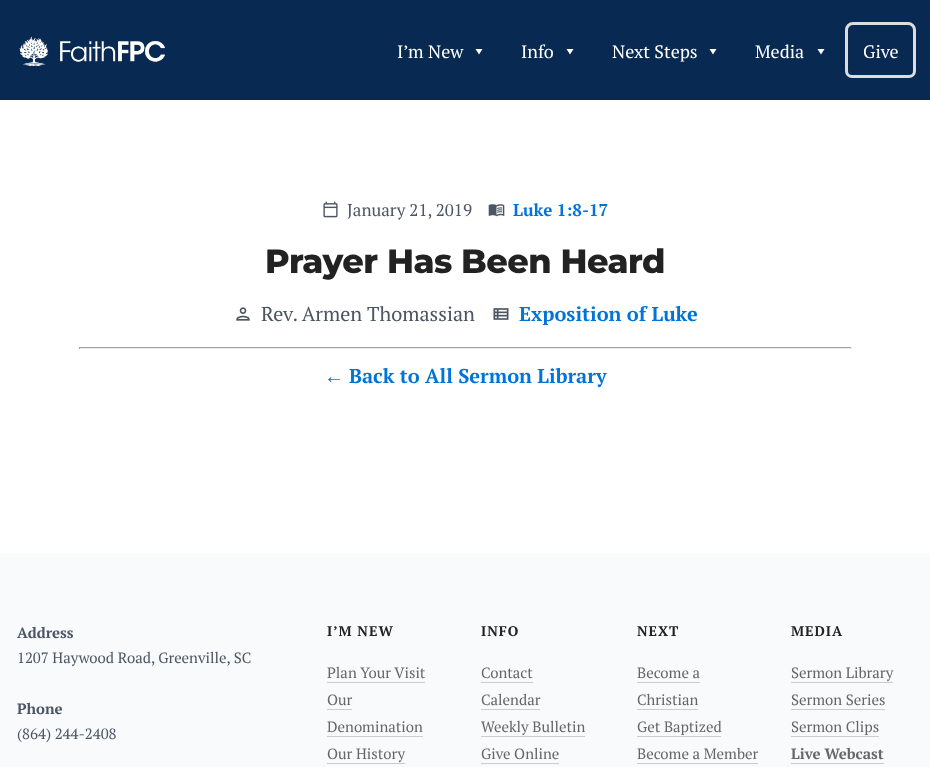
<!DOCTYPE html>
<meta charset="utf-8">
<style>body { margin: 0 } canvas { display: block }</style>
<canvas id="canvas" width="930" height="767"></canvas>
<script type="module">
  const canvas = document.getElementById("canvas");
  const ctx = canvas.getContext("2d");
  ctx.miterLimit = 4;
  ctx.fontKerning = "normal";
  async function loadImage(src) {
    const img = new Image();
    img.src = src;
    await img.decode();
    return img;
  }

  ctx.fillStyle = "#ffffff";
  ctx.fillRect(0, 0, 930, 767);
  ctx.fillStyle = "#082a52";
  ctx.fillRect(0, 0, 930, 100);
  ctx.drawImage(await loadImage("img1.png"), 19, 36, 147, 30);
  ctx.font = "18px PT Serif";
  ctx.fillStyle = "#ffffff";
  ctx.fillText("I’m New", 397, 58);
  ctx.beginPath();
  ctx.moveTo(482.5, 49);
  ctx.lineTo(479, 54.5);
  ctx.lineTo(475.5, 49);
  ctx.closePath();
  ctx.fill();
  ctx.fillText("Info", 521, 58);
  ctx.beginPath();
  ctx.moveTo(573.5, 49);
  ctx.lineTo(570, 54.5);
  ctx.lineTo(566.5, 49);
  ctx.closePath();
  ctx.fill();
  ctx.fillText("Next Steps", 612, 58);
  ctx.beginPath();
  ctx.moveTo(716.5, 49);
  ctx.lineTo(713, 54.5);
  ctx.lineTo(709.5, 49);
  ctx.closePath();
  ctx.fill();
  ctx.fillText("Media", 755, 58);
  ctx.beginPath();
  ctx.moveTo(824.5, 49);
  ctx.lineTo(821, 54.5);
  ctx.lineTo(817.5, 49);
  ctx.closePath();
  ctx.fill();
  ctx.beginPath();
  ctx.roundRect(846.5, 23.5, 68, 53, [6.5, 6.5, 5.5, 5.5]);
  ctx.strokeStyle = "#dddddd";
  ctx.lineWidth = 3;
  ctx.stroke();
  ctx.fillText("Give", 863, 58);
  ctx.drawImage(await loadImage("img2.png"), 323, 201, 15, 17);
  ctx.font = "17px PT Serif";
  ctx.fillStyle = "#4b5563";
  ctx.fillText("January 21, 2019", 347, 216);
  ctx.drawImage(await loadImage("img3.png"), 488, 204, 17, 13);
  ctx.font = "bold 17px PT Serif";
  ctx.fillStyle = "#0074d9";
  ctx.fillText("Luke 1:8-17", 513, 216);
  ctx.letterSpacing = "-0.5px";
  ctx.font = "800 33.5px Montserrat";
  ctx.fillStyle = "#222222";
  ctx.fillText("Prayer Has Been Heard", 265, 273);
  ctx.drawImage(await loadImage("img4.png"), 236, 307, 14, 14);
  ctx.letterSpacing = "0px";
  ctx.font = "20px PT Serif";
  ctx.fillStyle = "#4b5563";
  ctx.fillText("Rev. Armen Thomassian", 261, 321);
  ctx.drawImage(await loadImage("img5.png"), 493, 308, 16, 12);
  ctx.font = "bold 20px PT Serif";
  ctx.fillStyle = "#0074d9";
  ctx.fillText("Exposition of Luke", 519, 321);
  ctx.fillStyle = "#9f9f9f";
  ctx.fillRect(79, 347, 773, 1);
  ctx.fillStyle = "#eeeeee";
  ctx.fillRect(851, 347, 1, 2);
  ctx.fillRect(79, 348, 773, 1);
  ctx.fillStyle = "#9f9f9f";
  ctx.fillRect(79, 347, 1, 2);
  ctx.font = "bold 20px Liberation Serif";
  ctx.fillStyle = "#0074d9";
  ctx.fillText("←", 324, 383);
  ctx.font = "bold 20px PT Serif";
  ctx.fillText("Back to All Sermon Library", 349, 383);
  ctx.fillStyle = "#f8fafc";
  ctx.fillRect(0, 553, 930, 214);
  ctx.font = "bold 14.9px PT Serif";
  ctx.fillStyle = "#4b5563";
  ctx.fillText("Address", 17, 638);
  ctx.font = "14.9px PT Serif";
  ctx.fillText("1207 Haywood Road, Greenville, SC", 17, 663);
  ctx.font = "bold 14.9px PT Serif";
  ctx.fillText("Phone", 17, 714);
  ctx.font = "14.9px PT Serif";
  ctx.fillText("(864) 244-2408", 17, 739);
  ctx.letterSpacing = "1px";
  ctx.font = "bold 14px PT Serif";
  ctx.fillStyle = "#222222";
  ctx.fillText("I’M NEW", 327, 636);
  ctx.letterSpacing = "0px";
  ctx.font = "14.9px PT Serif";
  ctx.fillStyle = "#666666";
  ctx.fillText("Plan Your Visit", 327, 678);
  ctx.fillStyle = "#cccccc";
  ctx.fillRect(327, 682, 98, 1);
  ctx.fillStyle = "#666666";
  ctx.fillText("Our", 327, 705);
  ctx.fillStyle = "#cccccc";
  ctx.fillRect(327, 709, 25, 1);
  ctx.fillStyle = "#666666";
  ctx.fillText("Denomination", 327, 732);
  ctx.fillStyle = "#cccccc";
  ctx.fillRect(327, 736, 96, 1);
  ctx.fillStyle = "#666666";
  ctx.fillText("Our History", 327, 759);
  ctx.fillStyle = "#cccccc";
  ctx.fillRect(327, 763, 78, 1);
  ctx.letterSpacing = "1px";
  ctx.font = "bold 14px PT Serif";
  ctx.fillStyle = "#222222";
  ctx.fillText("INFO", 481, 636);
  ctx.letterSpacing = "0px";
  ctx.font = "14.9px PT Serif";
  ctx.fillStyle = "#666666";
  ctx.fillText("Contact", 481, 678);
  ctx.fillStyle = "#cccccc";
  ctx.fillRect(481, 682, 52, 1);
  ctx.fillStyle = "#666666";
  ctx.fillText("Calendar", 481, 705);
  ctx.fillStyle = "#cccccc";
  ctx.fillRect(481, 709, 59, 1);
  ctx.fillStyle = "#666666";
  ctx.fillText("Weekly Bulletin", 481, 732);
  ctx.fillStyle = "#cccccc";
  ctx.fillRect(481, 736, 104, 1);
  ctx.fillStyle = "#666666";
  ctx.fillText("Give Online", 481, 759);
  ctx.fillStyle = "#cccccc";
  ctx.fillRect(481, 763, 78, 1);
  ctx.letterSpacing = "1px";
  ctx.font = "bold 14px PT Serif";
  ctx.fillStyle = "#222222";
  ctx.fillText("NEXT", 637, 636);
  ctx.letterSpacing = "0px";
  ctx.font = "14.9px PT Serif";
  ctx.fillStyle = "#666666";
  ctx.fillText("Become a", 637, 678);
  ctx.fillStyle = "#cccccc";
  ctx.fillRect(637, 682, 63, 1);
  ctx.fillStyle = "#666666";
  ctx.fillText("Christian", 637, 705);
  ctx.fillStyle = "#cccccc";
  ctx.fillRect(637, 709, 61, 1);
  ctx.fillStyle = "#666666";
  ctx.fillText("Get Baptized", 637, 732);
  ctx.fillStyle = "#cccccc";
  ctx.fillRect(637, 736, 84, 1);
  ctx.fillStyle = "#666666";
  ctx.fillText("Become a Member", 637, 759);
  ctx.fillStyle = "#cccccc";
  ctx.fillRect(637, 763, 121, 1);
  ctx.letterSpacing = "1px";
  ctx.font = "bold 14px PT Serif";
  ctx.fillStyle = "#222222";
  ctx.fillText("MEDIA", 791, 636);
  ctx.letterSpacing = "0px";
  ctx.font = "14.9px PT Serif";
  ctx.fillStyle = "#666666";
  ctx.fillText("Sermon Library", 791, 678);
  ctx.fillStyle = "#cccccc";
  ctx.fillRect(791, 682, 102, 1);
  ctx.fillStyle = "#666666";
  ctx.fillText("Sermon Series", 791, 705);
  ctx.fillStyle = "#cccccc";
  ctx.fillRect(791, 709, 94, 1);
  ctx.fillStyle = "#666666";
  ctx.fillText("Sermon Clips", 791, 732);
  ctx.fillStyle = "#cccccc";
  ctx.fillRect(791, 736, 88, 1);
  ctx.font = "bold 14.9px PT Serif";
  ctx.fillStyle = "#666666";
  ctx.fillText("Live Webcast", 791, 759);
  ctx.fillStyle = "#cccccc";
  ctx.fillRect(791, 763, 93, 1);
</script>
